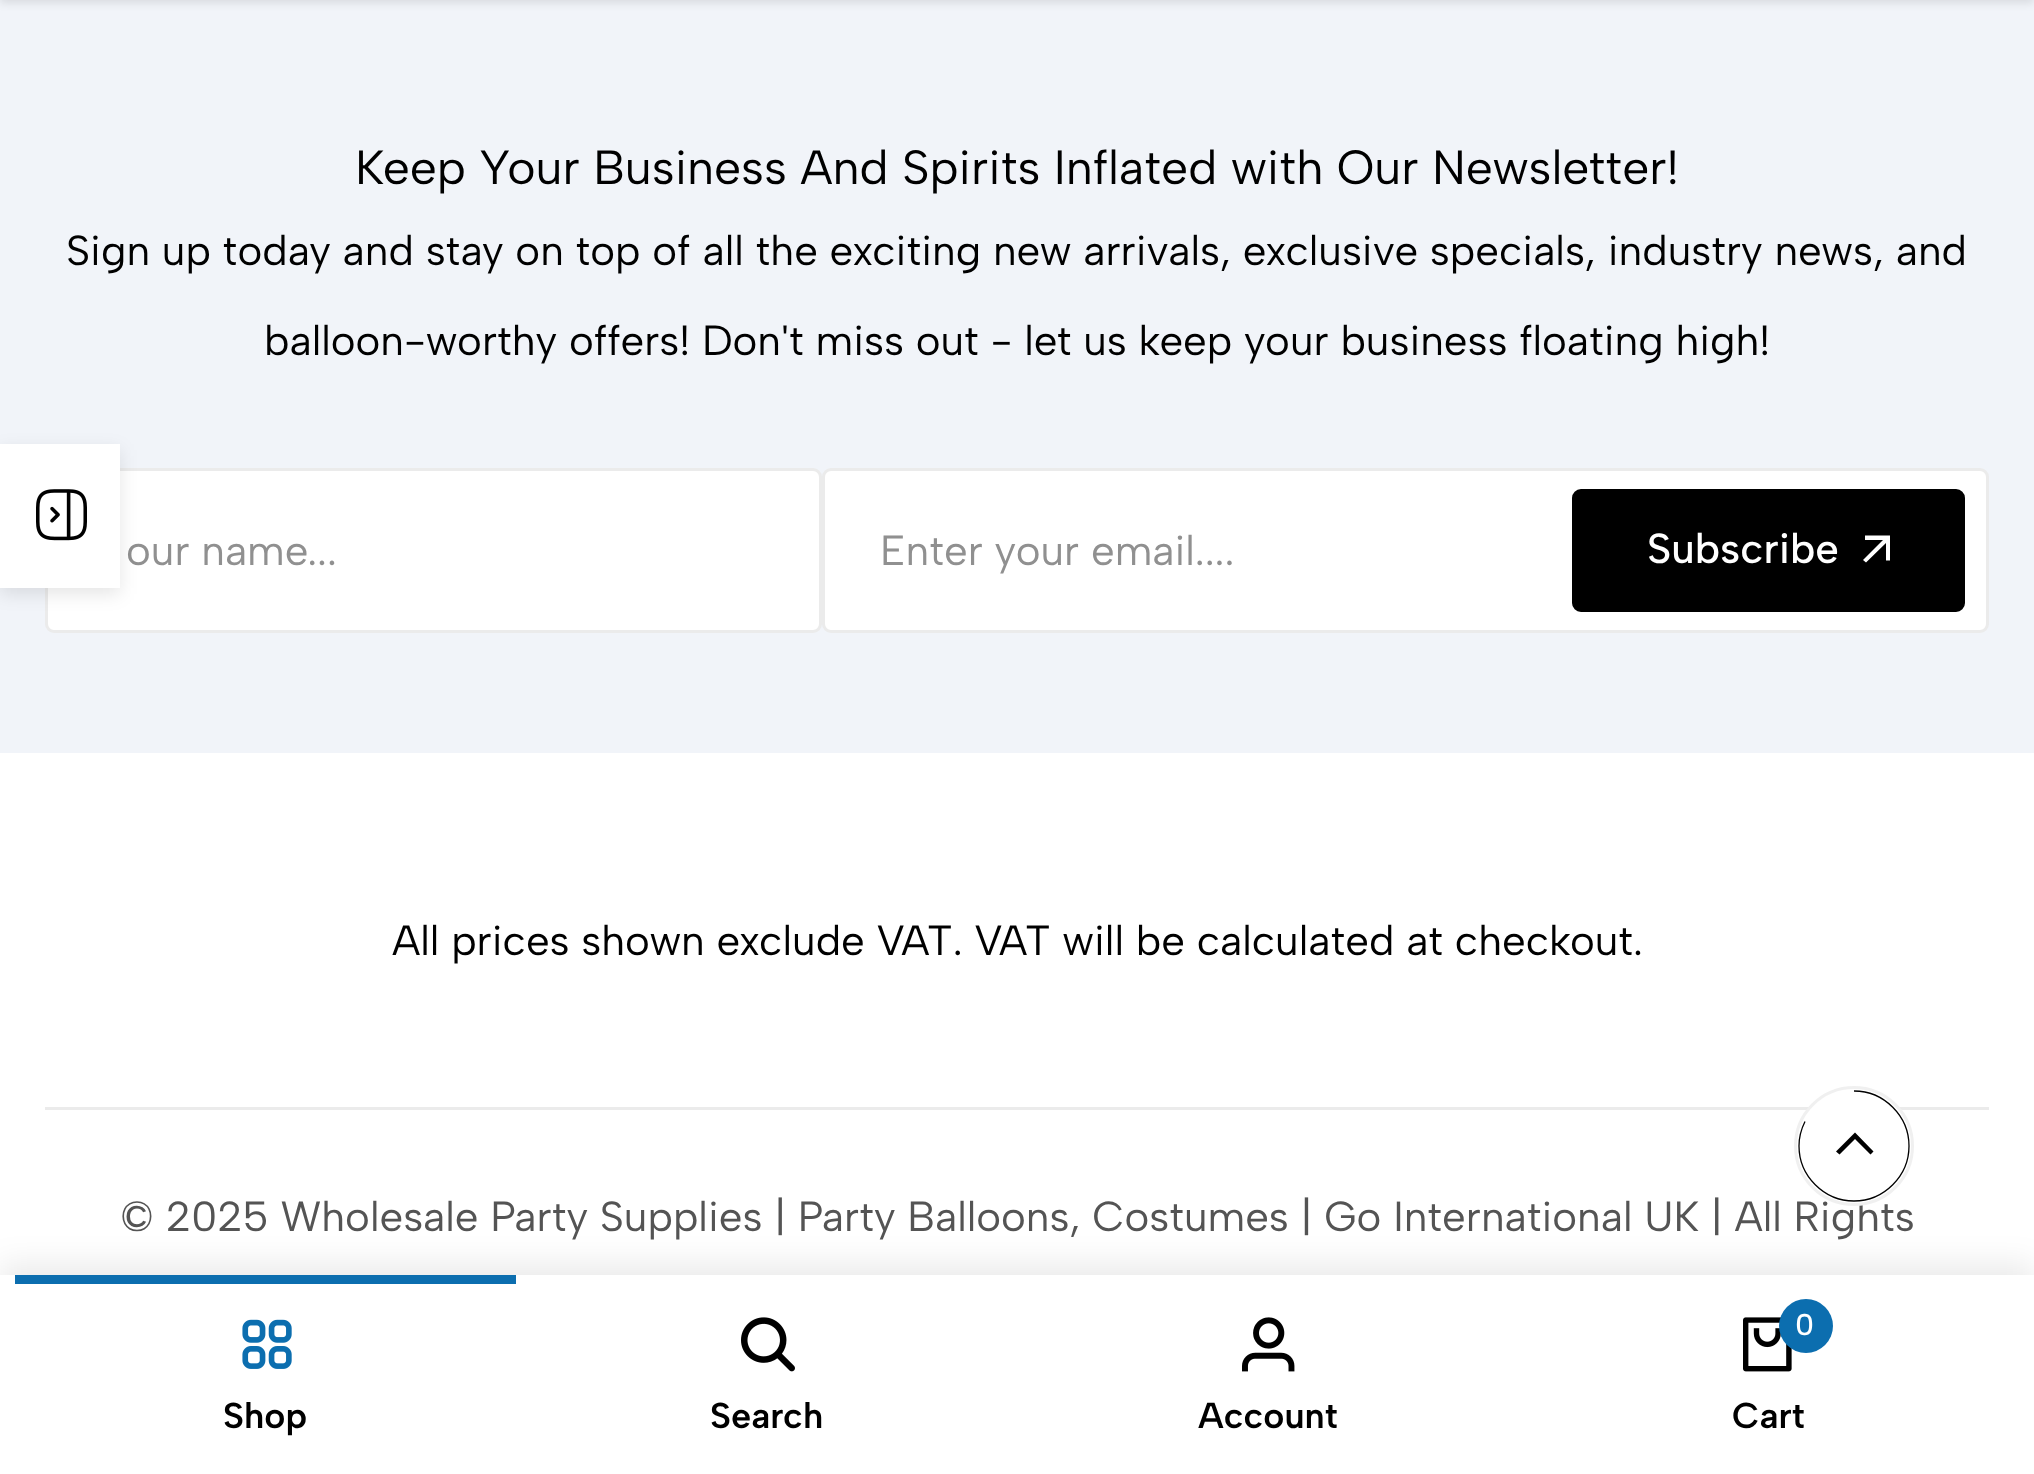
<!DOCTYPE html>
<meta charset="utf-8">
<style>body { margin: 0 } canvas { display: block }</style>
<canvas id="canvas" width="2034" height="1474"></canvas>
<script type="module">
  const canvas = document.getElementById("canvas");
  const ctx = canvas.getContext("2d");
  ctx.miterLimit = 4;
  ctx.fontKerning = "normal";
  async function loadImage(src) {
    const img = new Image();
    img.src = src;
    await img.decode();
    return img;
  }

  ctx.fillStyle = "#ffffff";
  ctx.fillRect(0, 0, 2034, 1474);
  ctx.fillStyle = "#f1f4f9";
  ctx.fillRect(0, 0, 2034, 753);
  ctx.fillStyle = "rgba(0, 0, 0, 0.1)";
  ctx.filter = "blur(4.5px)";
  ctx.beginPath();
  ctx.rect(0, -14, 2034, 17);
  ctx.fill();
  ctx.filter = "none";
  ctx.font = "48px Albert Sans";
  ctx.fillStyle = "#000000";
  ctx.fillText("Keep Your Business And Spirits Inflated with Our Newsletter!", 355, 184);
  ctx.font = "42px Albert Sans";
  ctx.fillText("Sign up today and stay on top of all the exciting new arrivals, exclusive specials, industry news, and", 66, 265);
  ctx.fillText("balloon-worthy offers! Don't miss out - let us keep your business floating high!", 264, 355);
  ctx.fillStyle = "#ffffff";
  ctx.beginPath();
  ctx.roundRect(46.5, 469.5, 774, 162, 7.5);
  ctx.fill();
  ctx.strokeStyle = "#ebebeb";
  ctx.lineWidth = 3;
  ctx.stroke();
  ctx.fillStyle = "#909090";
  ctx.fillText("our name...", 126, 565);
  ctx.fillStyle = "#ffffff";
  ctx.beginPath();
  ctx.roundRect(823.5, 469.5, 1164, 162, 7.5);
  ctx.fill();
  ctx.stroke();
  ctx.fillStyle = "#909090";
  ctx.fillText("Enter your email....", 880, 565);
  ctx.fillStyle = "#000000";
  ctx.beginPath();
  ctx.roundRect(1573.5, 490.5, 390, 120, 7.5);
  ctx.fill();
  ctx.strokeStyle = "#000000";
  ctx.stroke();
  ctx.font = "500 42px Albert Sans";
  ctx.fillStyle = "#ffffff";
  ctx.fillText("Subscribe", 1647, 563);
  ctx.beginPath();
  ctx.moveTo(1866, 562.5);
  ctx.lineTo(1863, 560);
  ctx.lineTo(1883, 540);
  ctx.lineTo(1865, 540);
  ctx.lineTo(1865, 535.5);
  ctx.lineTo(1890, 535.5);
  ctx.lineTo(1890, 560.5);
  ctx.lineTo(1886, 560.5);
  ctx.lineTo(1886, 543);
  ctx.closePath();
  ctx.fill();
  ctx.font = "42px Albert Sans";
  ctx.fillStyle = "#000000";
  ctx.fillText("All prices shown exclude VAT. VAT will be calculated at checkout.", 392, 955);
  ctx.fillStyle = "#ebebeb";
  ctx.fillRect(45, 1107, 1944, 3);
  ctx.fillStyle = "#545454";
  ctx.fillText("© 2025 Wholesale Party Supplies | Party Balloons, Costumes | Go International UK | All Rights", 120, 1231);
  ctx.fillStyle = "rgba(0, 0, 0, 0.1)";
  ctx.filter = "blur(9px)";
  ctx.beginPath();
  ctx.rect(0, 450, 120, 144);
  ctx.fill();
  ctx.filter = "none";
  ctx.fillStyle = "#ffffff";
  ctx.fillRect(0, 444, 120, 144);
  ctx.drawImage(await loadImage("img1.png"), 36, 489, 51, 52);
  ctx.beginPath();
  ctx.arc(1854, 1146, 60, 0, Math.PI * 2);
  ctx.fill();
  ctx.beginPath();
  ctx.arc(1854, 1146, 58.5, 0, Math.PI * 2);
  ctx.strokeStyle = "rgba(134, 134, 134, 0.12)";
  ctx.stroke();
  ctx.beginPath();
  ctx.moveTo(1854, 1091);
  ctx.bezierCurveTo(1884, 1091, 1909, 1116, 1909, 1146);
  ctx.bezierCurveTo(1909, 1176, 1884, 1201, 1854, 1201);
  ctx.bezierCurveTo(1824, 1201, 1799, 1176, 1799, 1146);
  ctx.bezierCurveTo(1799, 1137, 1801.5, 1128.5, 1805, 1121.5);
  ctx.strokeStyle = "#000000";
  ctx.lineWidth = 1.3;
  ctx.stroke();
  ctx.fillStyle = "#000000";
  ctx.beginPath();
  ctx.moveTo(1873.5, 1151.5);
  ctx.lineTo(1855, 1132.5);
  ctx.lineTo(1836, 1151.5);
  ctx.lineTo(1839.5, 1154.5);
  ctx.lineTo(1855, 1139);
  ctx.lineTo(1870.5, 1154.5);
  ctx.closePath();
  ctx.fill();
  ctx.fillStyle = "rgba(0, 0, 0, 0.08)";
  ctx.filter = "blur(15px)";
  ctx.beginPath();
  ctx.rect(0, 1263, 2034, 201);
  ctx.fill();
  ctx.filter = "none";
  ctx.fillStyle = "#ffffff";
  ctx.fillRect(0, 1275, 2034, 199);
  ctx.fillStyle = "#0c6eaf";
  ctx.fillRect(15, 1275, 501, 9);
  ctx.drawImage(await loadImage("img2.png"), 242, 1319, 50, 50);
  ctx.font = "600 36px Albert Sans";
  ctx.fillStyle = "#000000";
  ctx.fillText("Shop", 223, 1428);
  ctx.drawImage(await loadImage("img3.png"), 741, 1317, 54, 55);
  ctx.fillText("Search", 710, 1428);
  ctx.drawImage(await loadImage("img4.png"), 1242, 1317, 53, 55);
  ctx.fillText("Account", 1198, 1428);
  ctx.drawImage(await loadImage("img5.png"), 1743, 1317, 49, 55);
  ctx.fillStyle = "#0c6eaf";
  ctx.beginPath();
  ctx.arc(1806, 1326, 27, 0, Math.PI * 2);
  ctx.fill();
  ctx.font = "500 30px Albert Sans";
  ctx.fillStyle = "#ffffff";
  ctx.fillText("0", 1795, 1335);
  ctx.font = "600 36px Albert Sans";
  ctx.fillStyle = "#000000";
  ctx.fillText("Cart", 1732, 1428);
</script>
